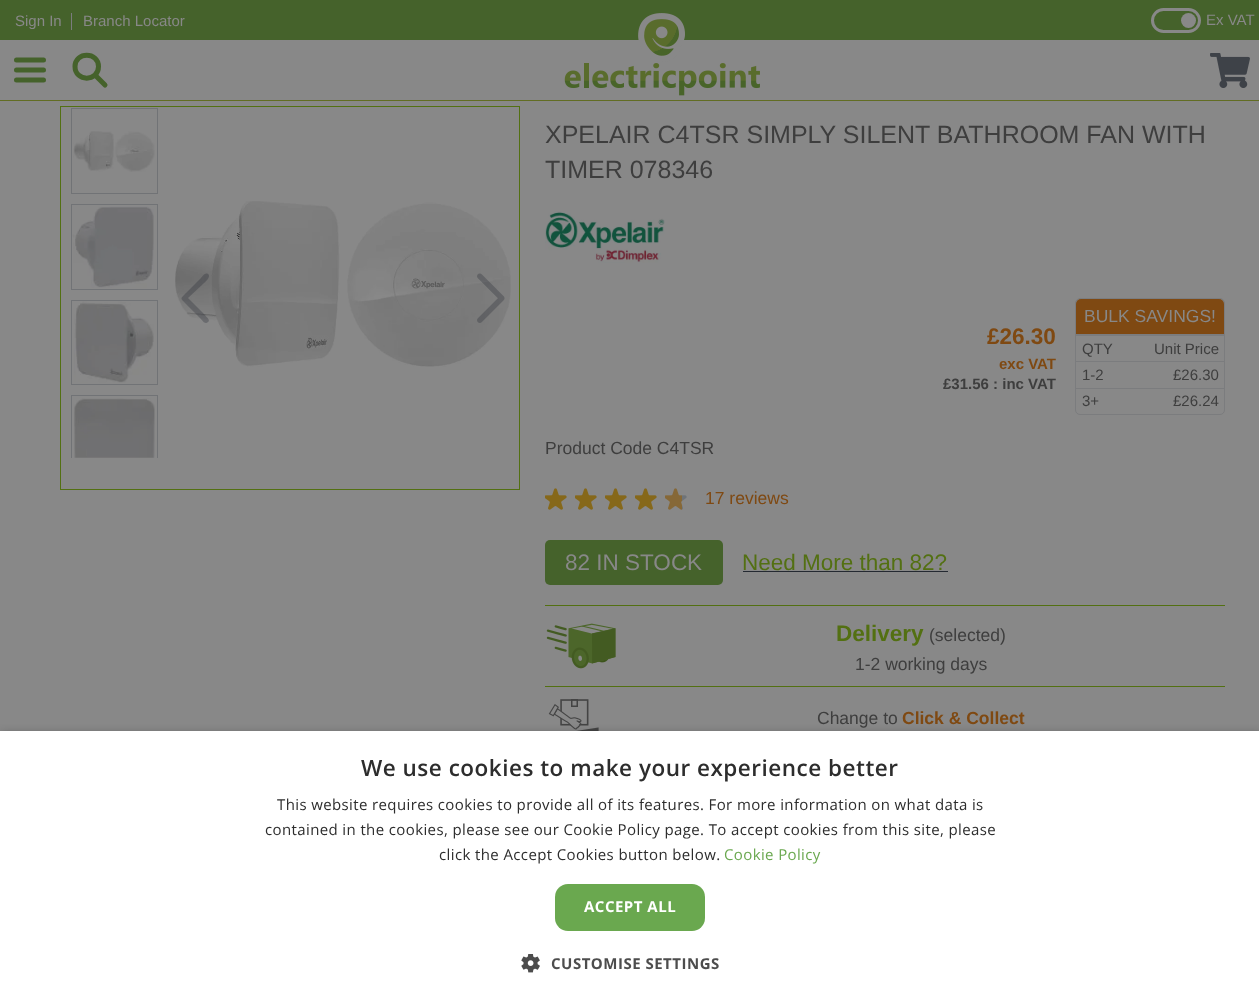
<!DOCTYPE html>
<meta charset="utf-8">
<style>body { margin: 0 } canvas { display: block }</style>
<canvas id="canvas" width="1259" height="1005"></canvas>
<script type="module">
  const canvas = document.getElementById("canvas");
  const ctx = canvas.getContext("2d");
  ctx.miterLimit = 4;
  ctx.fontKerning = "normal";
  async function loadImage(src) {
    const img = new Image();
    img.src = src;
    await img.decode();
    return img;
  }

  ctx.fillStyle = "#888888";
  ctx.fillRect(0, 0, 1259, 1005);
  ctx.fillStyle = "#626d23";
  ctx.fillRect(0, 100, 1259, 1);
  ctx.beginPath();
  ctx.moveTo(16.5, 60);
  ctx.lineTo(43.5, 60);
  ctx.moveTo(16.5, 70);
  ctx.lineTo(43.5, 70);
  ctx.moveTo(16.5, 80);
  ctx.lineTo(43.5, 80);
  ctx.strokeStyle = "#45622b";
  ctx.lineWidth = 5;
  ctx.lineCap = "round";
  ctx.lineJoin = "round";
  ctx.stroke();
  ctx.beginPath();
  ctx.moveTo(105, 85);
  ctx.lineTo(95, 75);
  ctx.moveTo(98.5, 66.5);
  ctx.bezierCurveTo(98.5, 82, 75, 82, 75, 66.5);
  ctx.bezierCurveTo(75, 51.5, 98.5, 51.5, 98.5, 66.5);
  ctx.closePath();
  ctx.stroke();
  ctx.fillStyle = "#45622b";
  ctx.fillRect(0, 0, 1259, 40);
  ctx.drawImage(await loadImage("img1.png"), 564, 13, 196, 83);
  ctx.drawImage(await loadImage("img2.png"), 1210, 53, 40, 35);
  ctx.font = "15px Liberation Sans";
  ctx.fillStyle = "#888888";
  ctx.fillText("Sign In", 15, 26);
  ctx.fillStyle = "#7b7c7e";
  ctx.fillRect(71, 13, 1, 17);
  ctx.fillStyle = "#888888";
  ctx.fillText("Branch Locator", 83, 26);
  ctx.beginPath();
  ctx.roundRect(1152.5, 9.5, 47, 22, 11);
  ctx.strokeStyle = "#888888";
  ctx.lineWidth = 3;
  ctx.lineJoin = "miter";
  ctx.stroke();
  ctx.beginPath();
  ctx.arc(1188.5, 20.5, 7.5, 0, Math.PI * 2);
  ctx.fill();
  ctx.fillText("Ex VAT", 1206, 25);
  ctx.strokeStyle = "#537012";
  ctx.lineWidth = 1;
  ctx.strokeRect(60.5, 106.5, 459, 383);
  ctx.strokeStyle = "#717376";
  ctx.strokeRect(71.5, 108.5, 86, 85);
  ctx.drawImage(await loadImage("img3.png"), 73, 131, 82, 41);
  ctx.strokeRect(71.5, 204.5, 86, 85);
  ctx.drawImage(await loadImage("img4.png"), 72, 206, 82, 82);
  ctx.strokeRect(71.5, 300.5, 86, 84);
  ctx.drawImage(await loadImage("img5.png"), 74, 301, 80, 82);
  ctx.save();
  ctx.beginPath();
  ctx.rect(61, 108, 107, 350);
  ctx.clip();
  ctx.strokeRect(71.5, 395.5, 86, 85);
  ctx.restore();
  ctx.drawImage(await loadImage("img6.png"), 74, 398, 81, 60);
  ctx.drawImage(await loadImage("img7.png"), 175, 201, 336, 166);
  ctx.fillStyle = "rgba(36, 41, 49, 0.3)";
  ctx.beginPath();
  ctx.moveTo(208, 322);
  ctx.bezierCurveTo(211, 320, 206, 317, 205, 315);
  ctx.lineTo(188, 298);
  ctx.lineTo(202, 285);
  ctx.bezierCurveTo(203, 284, 212, 277, 208, 274);
  ctx.bezierCurveTo(205, 272, 202, 277, 201, 278);
  ctx.lineTo(186, 293);
  ctx.bezierCurveTo(180, 299, 180, 298, 186, 304);
  ctx.lineTo(201, 319);
  ctx.bezierCurveTo(202, 320, 205, 325, 208, 322);
  ctx.closePath();
  ctx.fill("evenodd");
  ctx.drawImage(await loadImage("img8.png"), 477, 273, 28, 50);
  ctx.font = "25px Liberation Sans";
  ctx.fillStyle = "#3e3e3e";
  ctx.fillText("XPELAIR C4TSR SIMPLY SILENT BATHROOM FAN WITH", 545, 143);
  ctx.fillText("TIMER 078346", 545, 178);
  ctx.drawImage(await loadImage("img9.png"), 545, 211, 120, 52);
  ctx.fillStyle = "#537012";
  ctx.fillRect(545, 605, 680, 1);
  ctx.font = "bold 22.5px Liberation Sans";
  ctx.fillStyle = "#7f4912";
  ctx.fillText("£26.30", 987, 344);
  ctx.font = "bold 15px Liberation Sans";
  ctx.fillText("exc VAT", 999, 369);
  ctx.fillStyle = "#3e3e3e";
  ctx.fillText("£31.56 : inc VAT", 943, 389);
  ctx.beginPath();
  ctx.roundRect(1075.5, 298.5, 149, 116, 4.5);
  ctx.strokeStyle = "#7b7c7e";
  ctx.stroke();
  ctx.fillStyle = "#7f4912";
  ctx.beginPath();
  ctx.roundRect(1076, 299, 148, 35, [5, 5, 0, 0]);
  ctx.fill();
  ctx.fillStyle = "#7b7c7e";
  ctx.fillRect(1076, 334, 148, 2);
  ctx.font = "17.5px Liberation Sans";
  ctx.fillStyle = "#888888";
  ctx.fillText("BULK SAVINGS!", 1084, 322);
  ctx.font = "15px Liberation Sans";
  ctx.fillStyle = "#3e3e3e";
  ctx.fillText("QTY", 1082, 354);
  ctx.fillText("Unit Price", 1154, 354);
  ctx.fillStyle = "#7b7c7e";
  ctx.fillRect(1076, 361, 148, 1);
  ctx.fillStyle = "#3e3e3e";
  ctx.fillText("1-2", 1082, 380);
  ctx.fillText("£26.30", 1173, 380);
  ctx.fillStyle = "#7b7c7e";
  ctx.fillRect(1076, 388, 148, 1);
  ctx.fillStyle = "#3e3e3e";
  ctx.fillText("3+", 1082, 406);
  ctx.fillText("£26.24", 1173, 406);
  ctx.font = "17.5px Liberation Sans";
  ctx.fillText("Product Code C4TSR", 545, 454);
  ctx.drawImage(await loadImage("img10.png"), 545, 488, 22, 22);
  ctx.drawImage(await loadImage("img10.png"), 575, 488, 22, 22);
  ctx.drawImage(await loadImage("img10.png"), 605, 488, 22, 22);
  ctx.drawImage(await loadImage("img10.png"), 635, 488, 22, 22);
  ctx.drawImage(await loadImage("img11.png"), 665, 488, 22, 22);
  ctx.fillStyle = "#7f4912";
  ctx.fillText("17 reviews", 705, 504);
  ctx.fillStyle = "#45622b";
  ctx.beginPath();
  ctx.roundRect(545, 540, 178, 45, 5);
  ctx.fill();
  ctx.font = "22.5px Liberation Sans";
  ctx.fillStyle = "#888888";
  ctx.fillText("82 IN STOCK", 565, 570);
  ctx.fillStyle = "#537012";
  ctx.fillText("Need More than 82?", 742, 570);
  ctx.fillStyle = "#242931";
  ctx.fillRect(743, 571, 205, 1);
  ctx.fillStyle = "#537012";
  ctx.fillRect(545, 686, 680, 1);
  ctx.drawImage(await loadImage("img12.png"), 546, 623, 70, 46);
  ctx.font = "bold 22.5px Liberation Sans";
  ctx.fillText("Delivery", 836, 641);
  ctx.font = "17.5px Liberation Sans";
  ctx.fillStyle = "#3e3e3e";
  ctx.fillText("(selected)", 929, 641);
  ctx.fillText("1-2 working days", 855, 670);
  ctx.drawImage(await loadImage("img13.png"), 548, 699, 51, 32);
  ctx.fillText("Change to", 817, 724);
  ctx.font = "bold 17.5px Liberation Sans";
  ctx.fillStyle = "#7f4912";
  ctx.fillText("Click & Collect", 902, 724);
  ctx.fillStyle = "rgba(0, 0, 0, 0.35)";
  ctx.filter = "blur(5px)";
  ctx.beginPath();
  ctx.rect(1, 734, 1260, 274);
  ctx.fill();
  ctx.filter = "none";
  ctx.fillStyle = "#ffffff";
  ctx.fillRect(0, 731, 1259, 274);
  ctx.letterSpacing = "0.5px";
  ctx.font = "600 22.5px Open Sans";
  ctx.fillStyle = "#2d2d2d";
  ctx.fillText("We use cookies to make your experience better", 361, 776);
  ctx.letterSpacing = "0.38px";
  ctx.font = "15px Open Sans";
  ctx.fillText("This website requires cookies to provide all of its features. For more information on what data is", 277, 810);
  ctx.fillText("contained in the cookies, please see our Cookie Policy page. To accept cookies from this site, please", 265, 835);
  ctx.fillText("click the Accept Cookies button below.", 439, 860);
  ctx.fillStyle = "#6aa84f";
  ctx.fillText("Cookie Policy", 724, 860);
  ctx.beginPath();
  ctx.roundRect(555, 884, 150, 47, 13);
  ctx.fill();
  ctx.letterSpacing = "0.5px";
  ctx.font = "bold 15px Open Sans";
  ctx.fillStyle = "#ffffff";
  ctx.fillText("ACCEPT ALL", 584, 912);
  ctx.drawImage(await loadImage("img14.png"), 521, 954, 19, 19);
  ctx.fillStyle = "#4d4d4d";
  ctx.fillText("CUSTOMISE SETTINGS", 551, 969);
</script>
